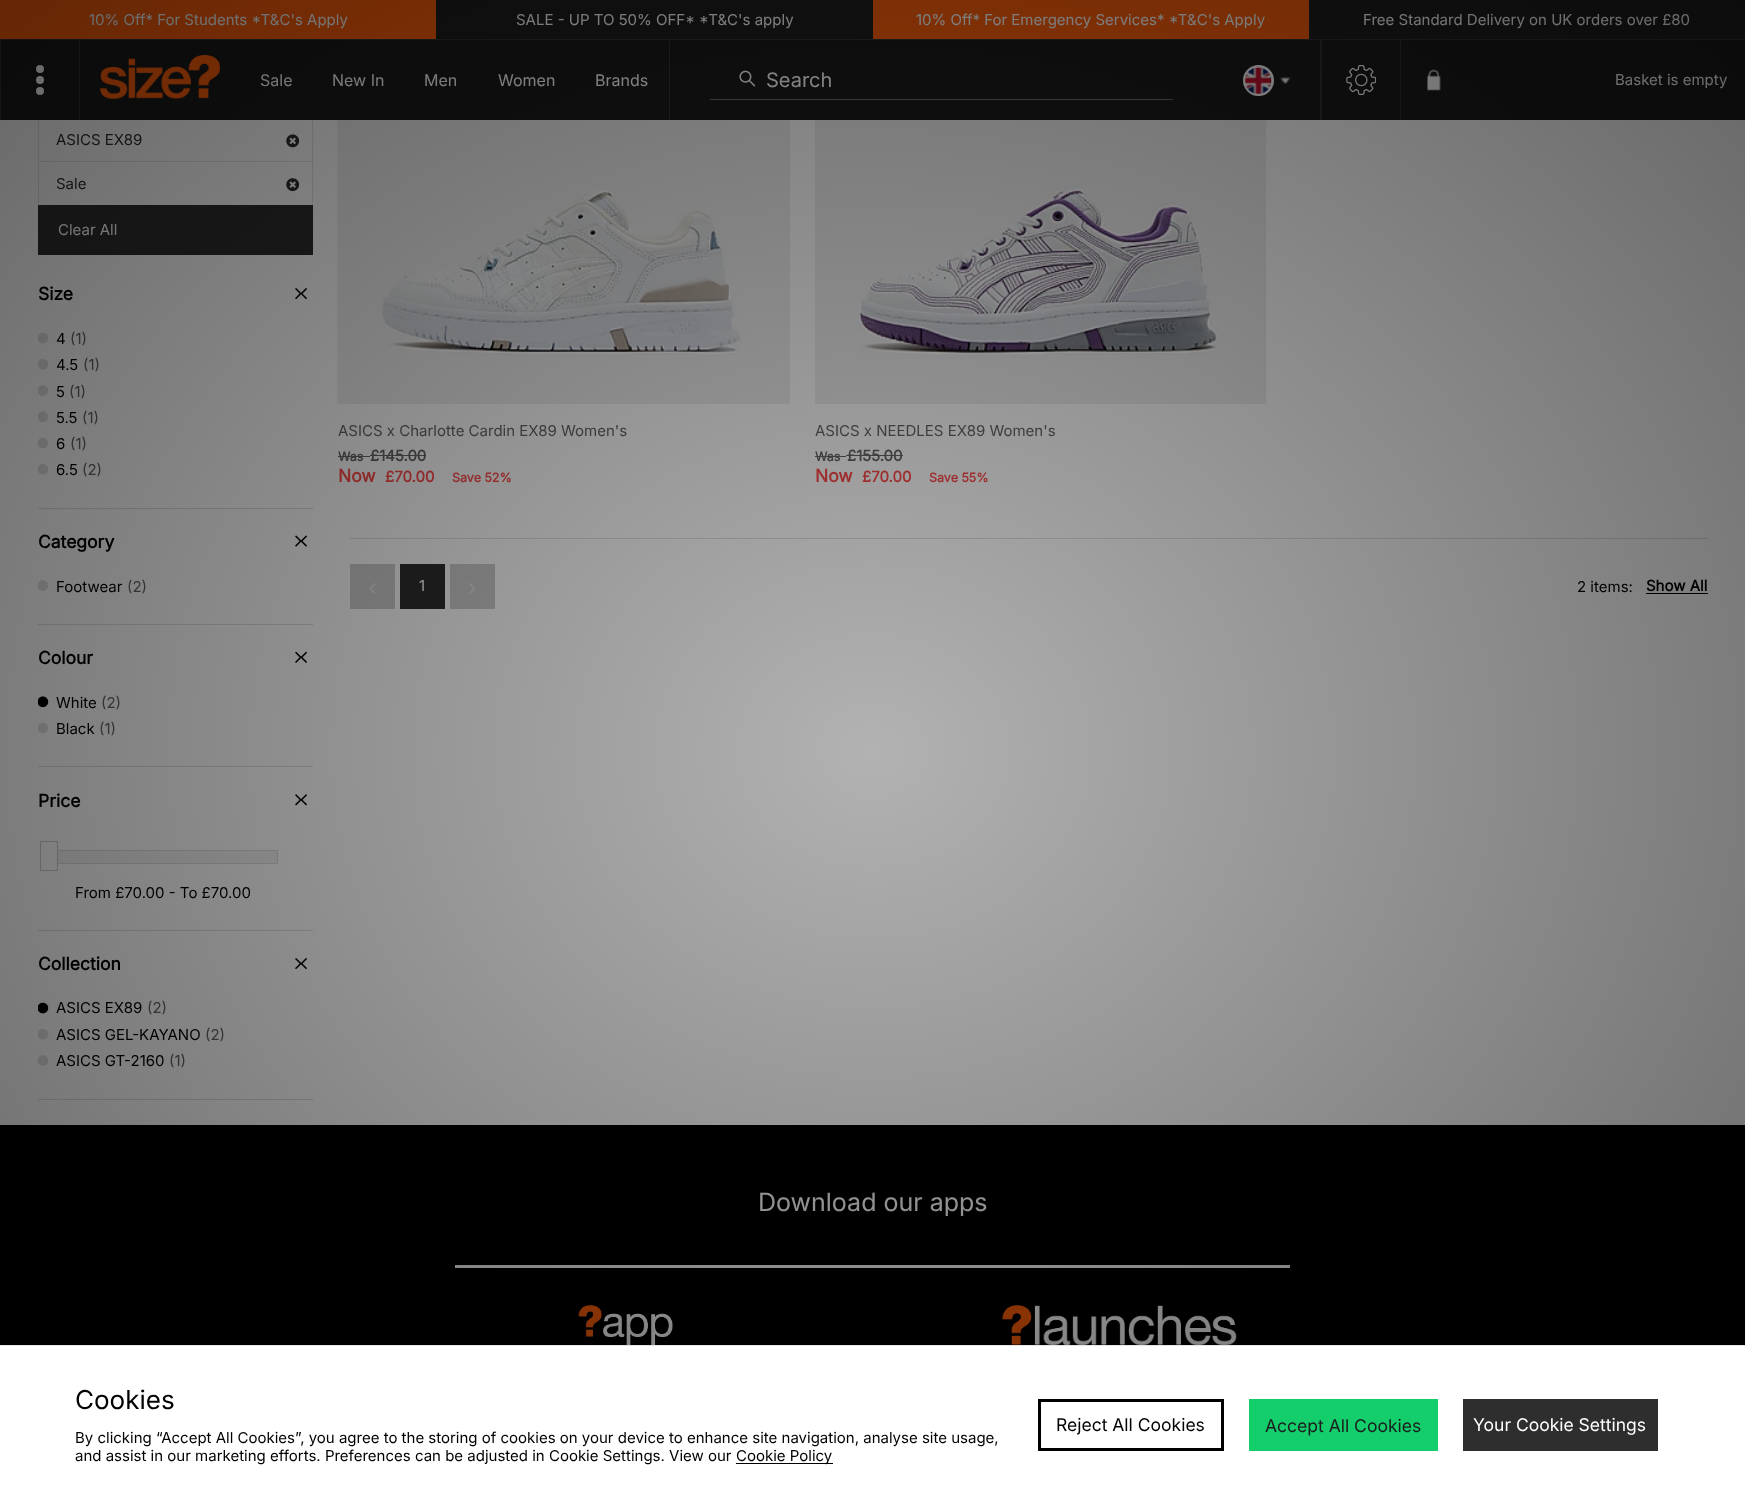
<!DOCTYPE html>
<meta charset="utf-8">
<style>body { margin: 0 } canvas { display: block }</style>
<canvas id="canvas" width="1745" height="1502"></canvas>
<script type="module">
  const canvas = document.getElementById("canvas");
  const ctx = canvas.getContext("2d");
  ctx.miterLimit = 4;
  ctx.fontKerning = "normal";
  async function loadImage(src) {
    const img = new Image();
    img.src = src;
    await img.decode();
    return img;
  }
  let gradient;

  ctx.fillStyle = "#ffffff";
  ctx.fillRect(0, 0, 1745, 1502);
  ctx.fillStyle = "#1f1f1f";
  ctx.fillRect(436, 0, 1309, 39);
  ctx.fillStyle = "#333333";
  ctx.fillRect(0, 39, 1745, 1);
  ctx.fillStyle = "#ff600b";
  ctx.fillRect(0, 0, 436, 39);
  ctx.font = "15px Inter";
  ctx.fillStyle = "#ffffff";
  ctx.fillText("10% Off* For Students *T&C's Apply", 89, 25);
  ctx.fillText("SALE - UP TO 50% OFF* *T&C's apply", 516, 25);
  ctx.fillStyle = "#ff600b";
  ctx.fillRect(873, 0, 436, 39);
  ctx.fillStyle = "#ffffff";
  ctx.fillText("10% Off* For Emergency Services* *T&C's Apply", 916, 25);
  ctx.fillText("Free Standard Delivery on UK orders over £80", 1363, 25);
  ctx.strokeStyle = "#e5e5e5";
  ctx.strokeRect(38.5, 118.5, 274, 44);
  ctx.fillStyle = "#1b1b1b";
  ctx.fillRect(1, 40, 1744, 80);
  ctx.fillStyle = "#333333";
  ctx.fillRect(79, 40, 1, 80);
  ctx.fillRect(0, 40, 1, 80);
  ctx.fillStyle = "#ffffff";
  ctx.beginPath();
  ctx.arc(40, 91, 4, 0, Math.PI * 2);
  ctx.fill();
  ctx.beginPath();
  ctx.arc(40, 80, 4, 0, Math.PI * 2);
  ctx.fill();
  ctx.beginPath();
  ctx.arc(40, 69, 4, 0, Math.PI * 2);
  ctx.fill();
  ctx.drawImage(await loadImage("img1.png"), 100, 55, 120, 44);
  ctx.fillStyle = "#333333";
  ctx.fillRect(669, 40, 1, 80);
  ctx.font = "16px Inter";
  ctx.fillStyle = "#ffffff";
  ctx.fillText("Sale", 260, 86);
  ctx.fillText("New In", 332, 86);
  ctx.fillText("Men", 424, 86);
  ctx.fillText("Women", 498, 86);
  ctx.fillText("Brands", 595, 86);
  ctx.fillStyle = "#6b6b6b";
  ctx.fillRect(710, 99, 463, 1);
  ctx.drawImage(await loadImage("img2.png"), 739, 70, 17, 17);
  ctx.font = "20px Inter";
  ctx.fillStyle = "#ffffff";
  ctx.fillText("Search", 766, 87);
  ctx.fillStyle = "#333333";
  ctx.fillRect(1320, 40, 2, 80);
  ctx.beginPath();
  ctx.arc(1258.5, 80.5, 14, 0, Math.PI * 2);
  ctx.strokeStyle = "#ffffff";
  ctx.lineWidth = 3;
  ctx.stroke();
  ctx.drawImage(await loadImage("img3.png"), 1244, 67, 28, 27);
  ctx.drawImage(await loadImage("img4.png"), 1280, 76, 11, 8);
  ctx.fillRect(1400, 40, 1, 80);
  ctx.drawImage(await loadImage("img5.png"), 1346, 65, 30, 30);
  ctx.drawImage(await loadImage("img6.png"), 1427, 69, 14, 22);
  ctx.font = "15px Inter";
  ctx.fillStyle = "#ffffff";
  ctx.fillText("Basket is empty", 1615, 85);
  ctx.fillStyle = "#2e2e2e";
  ctx.fillText("ASICS EX89", 56, 145);
  ctx.drawImage(await loadImage("img7.png"), 286, 134, 14, 14);
  ctx.fillStyle = "#ffffff";
  ctx.fillRect(39, 162, 273, 1);
  ctx.strokeStyle = "#e5e5e5";
  ctx.lineWidth = 1;
  ctx.strokeRect(38.5, 161.5, 274, 44);
  ctx.fillStyle = "#2e2e2e";
  ctx.fillText("Sale", 56, 189);
  ctx.drawImage(await loadImage("img8.png"), 286, 178, 14, 14);
  ctx.fillRect(38, 205, 275, 50);
  ctx.fillStyle = "#ffffff";
  ctx.fillText("Clear All", 58, 235);
  ctx.fillStyle = "#dfdfdf";
  ctx.fillRect(38, 508, 275, 1);
  ctx.font = "bold 17.5px Inter";
  ctx.fillStyle = "#000000";
  ctx.fillText("Size", 38, 300);
  ctx.drawImage(await loadImage("img9.png"), 295, 288, 7, 12);
  ctx.drawImage(await loadImage("img10.png"), 301, 288, 6, 12);
  ctx.drawImage(await loadImage("img11.png"), 38, 332, 11, 12);
  ctx.font = "15px Inter";
  ctx.fillText("4", 56, 344);
  ctx.fillStyle = "#666666";
  ctx.fillText("(1)", 70, 344);
  ctx.drawImage(await loadImage("img12.png"), 38, 359, 11, 11);
  ctx.fillStyle = "#000000";
  ctx.fillText("4.5", 56, 370);
  ctx.fillStyle = "#666666";
  ctx.fillText("(1)", 83, 370);
  ctx.drawImage(await loadImage("img13.png"), 38, 385, 11, 11);
  ctx.fillStyle = "#000000";
  ctx.fillText("5", 56, 397);
  ctx.fillStyle = "#666666";
  ctx.fillText("(1)", 69, 397);
  ctx.drawImage(await loadImage("img14.png"), 38, 411, 11, 11);
  ctx.fillStyle = "#000000";
  ctx.fillText("5.5", 56, 423);
  ctx.fillStyle = "#666666";
  ctx.fillText("(1)", 82, 423);
  ctx.drawImage(await loadImage("img11.png"), 38, 437, 11, 12);
  ctx.fillStyle = "#000000";
  ctx.fillText("6", 56, 449);
  ctx.fillStyle = "#666666";
  ctx.fillText("(1)", 70, 449);
  ctx.drawImage(await loadImage("img12.png"), 38, 464, 11, 11);
  ctx.fillStyle = "#000000";
  ctx.fillText("6.5", 56, 475);
  ctx.fillStyle = "#666666";
  ctx.fillText("(2)", 82, 475);
  ctx.fillStyle = "#dfdfdf";
  ctx.fillRect(38, 624, 275, 1);
  ctx.font = "bold 17.5px Inter";
  ctx.fillStyle = "#000000";
  ctx.fillText("Category", 38, 548);
  ctx.drawImage(await loadImage("img15.png"), 295, 535, 7, 12);
  ctx.drawImage(await loadImage("img16.png"), 301, 535, 6, 12);
  ctx.drawImage(await loadImage("img13.png"), 38, 580, 11, 11);
  ctx.font = "15px Inter";
  ctx.fillText("Footwear", 56, 592);
  ctx.fillStyle = "#666666";
  ctx.fillText("(2)", 127, 592);
  ctx.fillStyle = "#dfdfdf";
  ctx.fillRect(38, 766, 275, 1);
  ctx.font = "bold 17.5px Inter";
  ctx.fillStyle = "#000000";
  ctx.fillText("Colour", 38, 664);
  ctx.drawImage(await loadImage("img17.png"), 295, 651, 7, 12);
  ctx.drawImage(await loadImage("img18.png"), 301, 651, 6, 12);
  ctx.drawImage(await loadImage("img19.png"), 38, 696, 11, 12);
  ctx.font = "15px Inter";
  ctx.fillText("White", 56, 708);
  ctx.fillStyle = "#666666";
  ctx.fillText("(2)", 101, 708);
  ctx.drawImage(await loadImage("img11.png"), 38, 722, 11, 12);
  ctx.fillStyle = "#000000";
  ctx.fillText("Black", 56, 734);
  ctx.fillStyle = "#666666";
  ctx.fillText("(1)", 99, 734);
  ctx.fillStyle = "#dfdfdf";
  ctx.fillRect(38, 930, 275, 1);
  ctx.font = "bold 17.5px Inter";
  ctx.fillStyle = "#000000";
  ctx.fillText("Price", 38, 807);
  ctx.drawImage(await loadImage("img20.png"), 295, 794, 7, 12);
  ctx.drawImage(await loadImage("img21.png"), 301, 794, 6, 12);
  ctx.fillStyle = "#f2f2f2";
  ctx.fillRect(58, 851, 219, 12);
  ctx.strokeStyle = "#dddddd";
  ctx.strokeRect(48.5, 850.5, 229, 13);
  ctx.fillStyle = "#ffffff";
  ctx.fillRect(48, 850, 9, 14);
  ctx.strokeStyle = "#cccccc";
  ctx.strokeRect(40.5, 841.5, 17, 29);
  ctx.font = "15px Inter";
  ctx.fillStyle = "#000000";
  ctx.fillText("From £70.00 - To £70.00", 75, 898);
  ctx.fillStyle = "#dfdfdf";
  ctx.fillRect(38, 1099, 275, 1);
  ctx.font = "bold 17.5px Inter";
  ctx.fillStyle = "#000000";
  ctx.fillText("Collection", 38, 970);
  ctx.drawImage(await loadImage("img9.png"), 295, 958, 7, 12);
  ctx.drawImage(await loadImage("img10.png"), 301, 958, 6, 12);
  ctx.drawImage(await loadImage("img22.png"), 38, 1002, 11, 12);
  ctx.font = "15px Inter";
  ctx.fillText("ASICS EX89", 56, 1013);
  ctx.fillStyle = "#666666";
  ctx.fillText("(2)", 147, 1013);
  ctx.drawImage(await loadImage("img12.png"), 38, 1029, 11, 11);
  ctx.fillStyle = "#000000";
  ctx.fillText("ASICS GEL-KAYANO", 56, 1040);
  ctx.fillStyle = "#666666";
  ctx.fillText("(2)", 205, 1040);
  ctx.drawImage(await loadImage("img13.png"), 38, 1055, 11, 11);
  ctx.fillStyle = "#000000";
  ctx.fillText("ASICS GT-2160", 56, 1066);
  ctx.fillStyle = "#666666";
  ctx.fillText("(1)", 169, 1066);
  ctx.drawImage(await loadImage("img23.png"), 337, 120, 453, 284);
  ctx.fillText("ASICS x Charlotte Cardin EX89 Women's", 338, 436);
  ctx.font = "bold 12.5px Inter";
  ctx.fillText("Was", 338, 461);
  ctx.fillRect(338, 456, 32, 1);
  ctx.font = "bold 15px Inter";
  ctx.fillText("£145.00", 370, 461);
  ctx.fillRect(370, 455, 56, 1);
  ctx.font = "bold 17.5px Inter";
  ctx.fillStyle = "#ff4c4c";
  ctx.fillText("Now", 338, 482);
  ctx.font = "bold 15px Inter";
  ctx.fillText("£70.00", 385, 482);
  ctx.font = "bold 12.5px Inter";
  ctx.fillText("Save 52%", 452, 482);
  ctx.drawImage(await loadImage("img24.png"), 815, 120, 452, 284);
  ctx.font = "15px Inter";
  ctx.fillStyle = "#666666";
  ctx.fillText("ASICS x NEEDLES EX89 Women's", 815, 436);
  ctx.font = "bold 12.5px Inter";
  ctx.fillText("Was", 815, 461);
  ctx.fillRect(815, 456, 31, 1);
  ctx.font = "bold 15px Inter";
  ctx.fillText("£155.00", 847, 461);
  ctx.fillRect(846, 455, 57, 1);
  ctx.font = "bold 17.5px Inter";
  ctx.fillStyle = "#ff4c4c";
  ctx.fillText("Now", 815, 482);
  ctx.font = "bold 15px Inter";
  ctx.fillText("£70.00", 862, 482);
  ctx.font = "bold 12.5px Inter";
  ctx.fillText("Save 55%", 929, 482);
  ctx.fillStyle = "#dfdfdf";
  ctx.fillRect(350, 538, 1358, 1);
  ctx.fillStyle = "#cccccc";
  ctx.fillRect(350, 564, 45, 45);
  ctx.drawImage(await loadImage("img25.png"), 369, 583, 7, 11);
  ctx.fillStyle = "#2e2e2e";
  ctx.fillRect(400, 564, 45, 45);
  ctx.font = "15px Inter";
  ctx.fillStyle = "#ffffff";
  ctx.fillText("1", 419, 591);
  ctx.fillStyle = "#cccccc";
  ctx.fillRect(450, 564, 45, 45);
  ctx.drawImage(await loadImage("img26.png"), 469, 583, 7, 11);
  ctx.fillStyle = "#000000";
  ctx.fillText("2 items:", 1577, 592);
  ctx.font = "bold 15px Inter";
  ctx.fillText("Show All", 1646, 591);
  ctx.fillRect(1646, 593, 62, 1);
  ctx.fillRect(0, 1125, 1745, 220);
  ctx.font = "25px Inter";
  ctx.fillStyle = "#ffffff";
  ctx.fillText("Download our apps", 758, 1211);
  ctx.fillRect(455, 1265, 835, 3);
  ctx.drawImage(await loadImage("img27.png"), 578, 1305, 95, 40);
  ctx.drawImage(await loadImage("img28.png"), 1002, 1305, 235, 40);
  gradient = ctx.createRadialGradient(873, 872.63, 0, 873, 872.63, 1234);
  gradient.addColorStop(0, "rgba(0, 0, 0, 0.3)");
  gradient.addColorStop(1, "rgba(0, 0, 0, 0.6)");
  ctx.fillStyle = gradient;
  ctx.beginPath();
  ctx.rect(0, 0, 1745, 1345);
  ctx.save();
  ctx.clip();
  ctx.scale(1, 1062 / 1234);
  ctx.fillRect(0, 0, 1745, 1746);
  ctx.restore();
  ctx.fillStyle = "#e5e5e5";
  ctx.fillRect(0, 1345, 1745, 1);
  ctx.font = "26px Inter";
  ctx.fillStyle = "#000000";
  ctx.fillText("Cookies", 75, 1409);
  ctx.font = "15px Inter";
  ctx.fillText("By clicking “Accept All Cookies”, you agree to the storing of cookies on your device to enhance site navigation, analyse site usage,", 75, 1443);
  ctx.fillText("and assist in our marketing efforts. Preferences can be adjusted in Cookie Settings. View our", 75, 1461);
  ctx.fillRect(736, 1463, 97, 1);
  ctx.fillText("Cookie Policy", 736, 1461);
  ctx.strokeStyle = "#000000";
  ctx.lineWidth = 3;
  ctx.strokeRect(1039.5, 1400.5, 183, 49);
  ctx.font = "17.5px Inter";
  ctx.fillText("Reject All Cookies", 1056, 1431);
  ctx.fillStyle = "#13ce6b";
  ctx.fillRect(1249, 1399, 189, 52);
  ctx.fillStyle = "#1b1c1e";
  ctx.fillText("Accept All Cookies", 1265, 1432);
  ctx.fillStyle = "#2e2e2e";
  ctx.fillRect(1463, 1399, 195, 52);
  ctx.fillStyle = "#ffffff";
  ctx.fillText("Your Cookie Settings", 1473, 1431);
</script>
